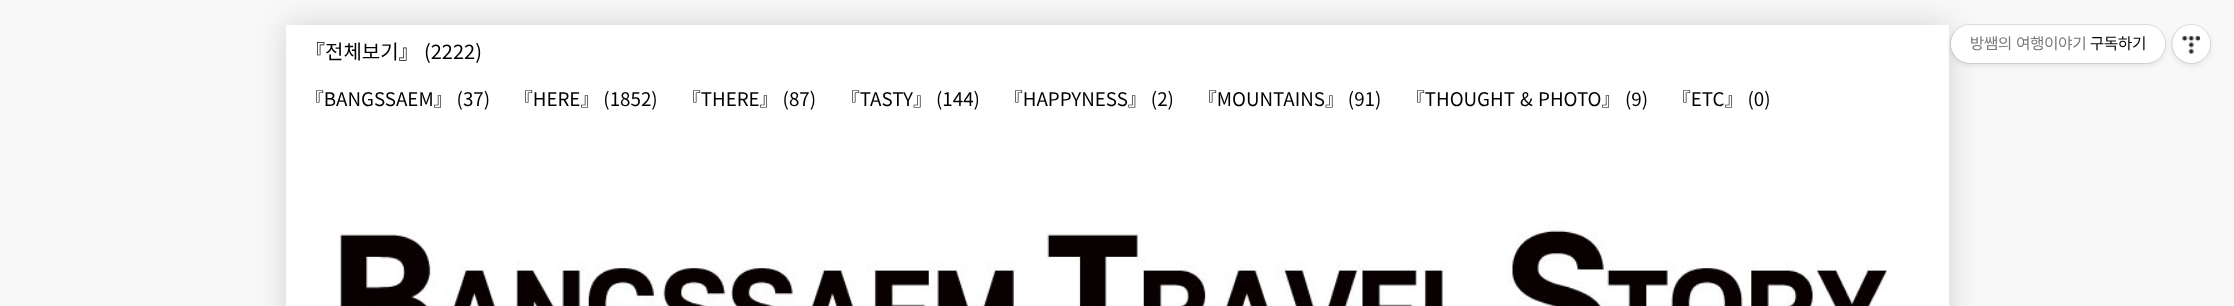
<!DOCTYPE html>
<meta charset="utf-8">
<style>body { margin: 0 } canvas { display: block }</style>
<canvas id="canvas" width="2234" height="306"></canvas>
<script type="module">
  const canvas = document.getElementById("canvas");
  const ctx = canvas.getContext("2d");
  ctx.miterLimit = 4;
  ctx.fontKerning = "normal";
  async function loadImage(src) {
    const img = new Image();
    img.src = src;
    await img.decode();
    return img;
  }

  ctx.fillStyle = "#f8f8f8";
  ctx.fillRect(0, 0, 2234, 306);
  ctx.fillStyle = "rgba(0, 0, 0, 0.15)";
  ctx.filter = "blur(15.5px)";
  ctx.beginPath();
  ctx.rect(286, 25, 1663, 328);
  ctx.fill();
  ctx.filter = "none";
  ctx.fillStyle = "#ffffff";
  ctx.fillRect(286, 25, 1663, 281);
  ctx.font = "20px Noto Sans KR";
  ctx.fillStyle = "#000000";
  ctx.fillText("『전체보기』", 305, 59);
  ctx.fillText("(2222)", 424, 59);
  ctx.font = "18.75px Noto Sans KR";
  ctx.fillText("『BANGSSAEM』 (37)", 305, 106);
  ctx.fillText("『HERE』 (1852)", 514, 106);
  ctx.fillText("『THERE』 (87)", 682, 106);
  ctx.fillText("『TASTY』 (144)", 841, 106);
  ctx.fillText("『HAPPYNESS』 (2)", 1004, 106);
  ctx.fillText("『MOUNTAINS』 (91)", 1198, 106);
  ctx.wordSpacing = "1px";
  ctx.fillText("『THOUGHT & PHOTO』", 1406, 106);
  ctx.wordSpacing = "0px";
  ctx.fillText("(9)", 1625, 106);
  ctx.fillText("『ETC』 (0)", 1672, 106);
  ctx.drawImage(await loadImage("img1.png"), 339, 222, 1549, 84);
  ctx.fillStyle = "rgba(0, 0, 0, 0.1)";
  ctx.filter = "blur(3px)";
  ctx.beginPath();
  ctx.roundRect(2173, 28, 37, 37, 18.5);
  ctx.fill();
  ctx.filter = "none";
  ctx.beginPath();
  ctx.arc(2191, 44, 19.5, 0, Math.PI * 2);
  ctx.strokeStyle = "rgba(0, 0, 0, 0.1)";
  ctx.stroke();
  ctx.fillStyle = "#ffffff";
  ctx.beginPath();
  ctx.roundRect(2173, 25, 37, 38, 18.5);
  ctx.fill();
  ctx.fillStyle = "rgba(0, 0, 0, 0.1)";
  ctx.filter = "blur(3px)";
  ctx.beginPath();
  ctx.roundRect(1951, 28, 214, 37, 18.5);
  ctx.fill();
  ctx.filter = "none";
  ctx.beginPath();
  ctx.roundRect(1950.5, 24.5, 215, 39, 19.5);
  ctx.stroke();
  ctx.fillStyle = "#ffffff";
  ctx.beginPath();
  ctx.roundRect(1951, 25, 214, 38, 19);
  ctx.fill();
  ctx.font = "16.25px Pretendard";
  ctx.fillStyle = "#777777";
  ctx.fillText("방쌤의 여행이야기", 1970, 49);
  ctx.fillStyle = "#000000";
  ctx.fillText("구독하기", 2090, 49);
  ctx.drawImage(await loadImage("img2.png"), 2182, 35, 18, 19);
</script>
